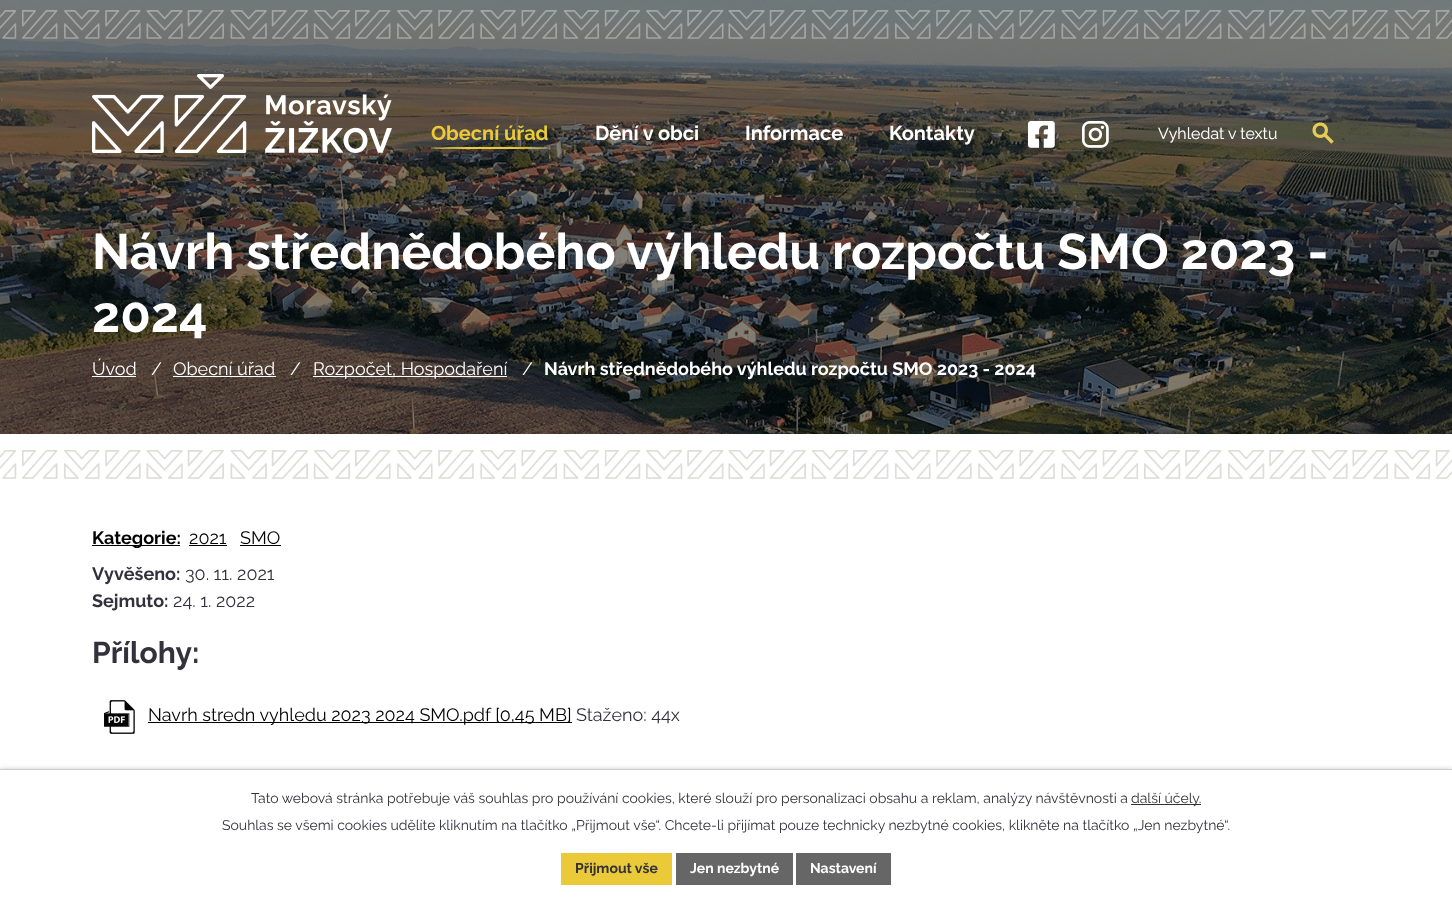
<!DOCTYPE html>
<meta charset="utf-8">
<style>body { margin: 0 } canvas { display: block }</style>
<canvas id="canvas" width="1452" height="904"></canvas>
<script type="module">
  const canvas = document.getElementById("canvas");
  const ctx = canvas.getContext("2d");
  ctx.miterLimit = 4;
  ctx.fontKerning = "normal";
  async function loadImage(src) {
    const img = new Image();
    img.src = src;
    await img.decode();
    return img;
  }

  ctx.fillStyle = "#ffffff";
  ctx.fillRect(0, 0, 1452, 904);
  ctx.drawImage(await loadImage("img6.png"), 0, 0, 1452, 434);
  ctx.drawImage(await loadImage("img1.png"), 0, 10, 1452, 29);
  ctx.font = "bold 20px Raleway";
  ctx.fillStyle = "#ebca39";
  ctx.fillText("Obecní úřad", 431, 140);
  ctx.beginPath();
  ctx.ellipse(490, 148, 59, 1, 0, 0, Math.PI * 2);
  ctx.fill();
  ctx.fillStyle = "#ffffff";
  ctx.fillText("Dění v obci", 595, 140);
  ctx.fillText("Informace", 745, 140);
  ctx.fillText("Kontakty", 889, 140);
  ctx.drawImage(await loadImage("img2.png"), 92, 74, 300, 79);
  ctx.drawImage(await loadImage("img3.png"), 1028, 121, 27, 27);
  ctx.drawImage(await loadImage("img4.png"), 1082, 121, 27, 27);
  ctx.font = "16px Raleway";
  ctx.fillText("Vyhledat v textu", 1158, 139);
  ctx.drawImage(await loadImage("img5.png"), 1312, 122, 22, 22);
  ctx.font = "bold 49.9px Raleway";
  ctx.fillText("Návrh střednědobého výhledu rozpočtu SMO 2023 -", 92, 269);
  ctx.fillText("2024", 92, 332);
  ctx.font = "18px Raleway";
  ctx.fillText("Úvod", 92, 375);
  ctx.fillRect(92, 376, 44, 1);
  ctx.fillText("/", 151, 375);
  ctx.fillText("Obecní úřad", 173, 375);
  ctx.fillRect(173, 376, 103, 1);
  ctx.fillText("/", 290, 375);
  ctx.fillRect(313, 376, 194, 1);
  ctx.fillText("Rozpočet, Hospodaření", 313, 375);
  ctx.fillText("/", 522, 375);
  ctx.font = "bold 18px Raleway";
  ctx.fillText("Návrh střednědobého výhledu rozpočtu SMO 2023 - 2024", 544, 375);
  ctx.drawImage(await loadImage("img7.png"), 0, 450, 1452, 29);
  ctx.fillStyle = "#000000";
  ctx.fillRect(92, 545, 88, 1);
  ctx.fillText("Kategorie:", 92, 544);
  ctx.font = "18px Raleway";
  ctx.fillText("2021", 189, 544);
  ctx.fillRect(189, 545, 38, 1);
  ctx.fillText("SMO", 240, 544);
  ctx.fillRect(240, 545, 41, 1);
  ctx.font = "bold 18px Raleway";
  ctx.fillStyle = "#32313c";
  ctx.fillText("Vyvěšeno:", 92, 580);
  ctx.font = "18px Raleway";
  ctx.fillText("30. 11. 2021", 185, 580);
  ctx.font = "bold 18px Raleway";
  ctx.fillText("Sejmuto:", 92, 607);
  ctx.font = "18px Raleway";
  ctx.fillText("24. 1. 2022", 173, 607);
  ctx.font = "bold 30px Raleway";
  ctx.fillText("Přílohy:", 92, 663);
  ctx.drawImage(await loadImage("img8.png"), 104, 700, 31, 34);
  ctx.fillStyle = "#000000";
  ctx.fillRect(148, 722, 424, 1);
  ctx.font = "18px Raleway";
  ctx.fillText("Navrh stredn vyhledu 2023 2024 SMO.pdf [0,45 MB]", 148, 721);
  ctx.fillStyle = "#32313c";
  ctx.fillText("Staženo: 44x", 576, 721);
  ctx.fillStyle = "rgba(0, 0, 0, 0.2)";
  ctx.filter = "blur(2.5px)";
  ctx.beginPath();
  ctx.rect(0, 769, 1452, 135);
  ctx.fill();
  ctx.filter = "none";
  ctx.fillStyle = "#ffffff";
  ctx.fillRect(0, 770, 1452, 134);
  ctx.fillStyle = "#cccccc";
  ctx.fillRect(0, 769, 1452, 1);
  ctx.font = "14px Raleway";
  ctx.fillStyle = "#32313c";
  ctx.fillText("Tato webová stránka potřebuje váš souhlas pro používání cookies, které slouží pro personalizaci obsahu a reklam, analýzy návštěvnosti a", 251, 803);
  ctx.fillStyle = "#333333";
  ctx.fillRect(1131, 804, 70, 1);
  ctx.fillText("další účely.", 1131, 803);
  ctx.fillStyle = "#32313c";
  ctx.fillText("Souhlas se všemi cookies udělíte kliknutím na tlačítko „Přijmout vše“. Chcete-li přijímat pouze technicky nezbytné cookies, klikněte na tlačítko „Jen nezbytné“.", 222, 830);
  ctx.fillStyle = "#ebca39";
  ctx.fillRect(561, 853, 111, 32);
  ctx.font = "bold 14px Raleway";
  ctx.fillStyle = "#32313c";
  ctx.fillText("Přijmout vše", 575, 873);
  ctx.fillStyle = "#666666";
  ctx.fillRect(676, 853, 117, 32);
  ctx.fillStyle = "#ffffff";
  ctx.fillText("Jen nezbytné", 690, 873);
  ctx.fillStyle = "#666666";
  ctx.fillRect(796, 853, 95, 32);
  ctx.fillStyle = "#ffffff";
  ctx.fillText("Nastavení", 810, 873);
</script>
